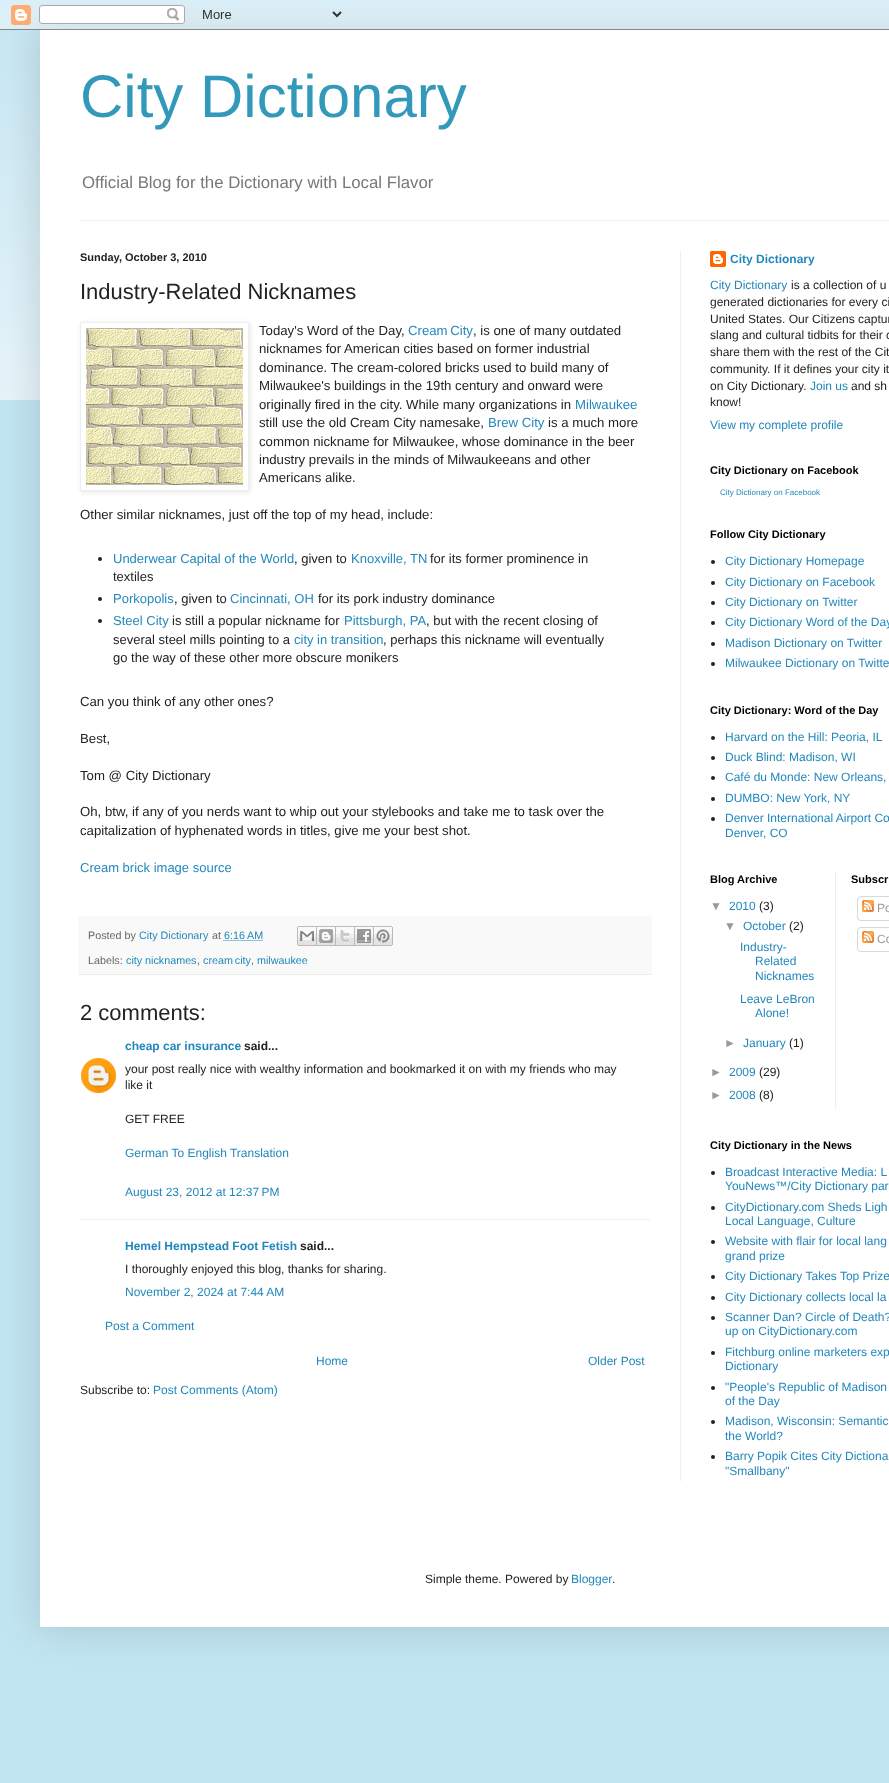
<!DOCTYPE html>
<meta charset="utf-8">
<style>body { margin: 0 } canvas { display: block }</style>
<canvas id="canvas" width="889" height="1783"></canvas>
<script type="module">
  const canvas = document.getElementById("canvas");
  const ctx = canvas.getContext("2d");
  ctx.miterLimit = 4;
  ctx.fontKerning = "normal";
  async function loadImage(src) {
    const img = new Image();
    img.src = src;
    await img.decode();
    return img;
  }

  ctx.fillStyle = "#c2e5f2";
  ctx.fillRect(0, 0, 889, 1783);
  ctx.drawImage(await loadImage("img2.png"), 0, 10, 889, 390);
  ctx.fillStyle = "rgba(0, 0, 0, 0.15)";
  ctx.filter = "blur(20px)";
  ctx.beginPath();
  ctx.rect(40, 30, 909, 1597);
  ctx.fill();
  ctx.filter = "none";
  ctx.drawImage(await loadImage("img1.png"), 0, 0, 889, 30);
  ctx.fillStyle = "#ffffff";
  ctx.fillRect(40, 30, 849, 1597);
  ctx.font = "60px Liberation Sans";
  ctx.fillStyle = "#3399bb";
  ctx.fillText("City Dictionary", 80, 117);
  ctx.font = "16.8px Liberation Sans";
  ctx.fillStyle = "#777777";
  ctx.fillText("Official Blog for the Dictionary with Local Flavor", 82, 188);
  ctx.fillStyle = "#eeeeee";
  ctx.fillRect(80, 220, 809, 1);
  ctx.fillRect(680, 251, 1, 1230);
  ctx.font = "bold 11px Liberation Sans";
  ctx.fillStyle = "#222222";
  ctx.fillText("Sunday, October 3, 2010", 80, 261);
  ctx.font = "22px Liberation Sans";
  ctx.fillText("Industry-Related Nicknames", 80, 299);
  ctx.save();
  ctx.beginPath();
  ctx.moveTo(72, 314);
  ctx.lineTo(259, 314);
  ctx.lineTo(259, 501);
  ctx.lineTo(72, 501);
  ctx.closePath();
  ctx.moveTo(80, 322);
  ctx.lineTo(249, 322);
  ctx.lineTo(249, 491);
  ctx.lineTo(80, 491);
  ctx.closePath();
  ctx.clip("evenodd");
  ctx.fillStyle = "rgba(0, 0, 0, 0.1)";
  ctx.filter = "blur(2.5px)";
  ctx.beginPath();
  ctx.rect(81, 323, 169, 169);
  ctx.fill();
  ctx.filter = "none";
  ctx.restore();
  ctx.strokeStyle = "#eeeeee";
  ctx.strokeRect(80.5, 322.5, 168, 168);
  ctx.drawImage(await loadImage("img3.png"), 86, 328, 157, 157);
  ctx.font = "13.2px Liberation Sans";
  ctx.fillText("Today's Word of the Day,", 259, 335);
  ctx.wordSpacing = "-1px";
  ctx.fillStyle = "#2288bb";
  ctx.fillText("Cream City", 408, 335);
  ctx.wordSpacing = "0px";
  ctx.fillStyle = "#222222";
  ctx.fillText(", is one of many outdated", 473, 335);
  ctx.fillText("nicknames for American cities based on former industrial", 259, 353);
  ctx.fillText("dominance. The cream-colored bricks used to build many of", 259, 372);
  ctx.fillText("Milwaukee's buildings in the 19th century and onward were", 259, 390);
  ctx.fillText("originally fired in the city. While many organizations in", 259, 409);
  ctx.fillStyle = "#2288bb";
  ctx.fillText("Milwaukee", 575, 409);
  ctx.fillStyle = "#222222";
  ctx.fillText("still use the old Cream City namesake,", 259, 427);
  ctx.fillStyle = "#2288bb";
  ctx.fillText("Brew City", 488, 427);
  ctx.fillStyle = "#222222";
  ctx.fillText("is a much more", 548, 427);
  ctx.fillText("common nickname for Milwaukee, whose dominance in the beer", 259, 446);
  ctx.fillText("industry prevails in the minds of Milwaukeeans and other", 259, 464);
  ctx.fillText("Americans alike.", 259, 482);
  ctx.fillText("Other similar nicknames, just off the top of my head, include:", 80, 519);
  ctx.beginPath();
  ctx.arc(100, 559, 2, 0, Math.PI * 2);
  ctx.fill();
  ctx.font = "13px Liberation Sans";
  ctx.fillStyle = "#2288bb";
  ctx.fillText("Underwear Capital of the World", 113, 563);
  ctx.fillStyle = "#222222";
  ctx.fillText(", given to", 294, 563);
  ctx.fillStyle = "#2288bb";
  ctx.fillText("Knoxville, TN", 351, 563);
  ctx.fillStyle = "#222222";
  ctx.fillText("for its former prominence in", 430, 563);
  ctx.fillText("textiles", 113, 581);
  ctx.beginPath();
  ctx.arc(100, 599, 2, 0, Math.PI * 2);
  ctx.fill();
  ctx.fillStyle = "#2288bb";
  ctx.fillText("Porkopolis", 113, 603);
  ctx.fillStyle = "#222222";
  ctx.fillText(", given to", 174, 603);
  ctx.fillStyle = "#2288bb";
  ctx.fillText("Cincinnati, OH", 230, 603);
  ctx.fillStyle = "#222222";
  ctx.fillText("for its pork industry dominance", 318, 603);
  ctx.beginPath();
  ctx.arc(100, 621, 2, 0, Math.PI * 2);
  ctx.fill();
  ctx.fillStyle = "#2288bb";
  ctx.fillText("Steel City", 113, 625);
  ctx.fillStyle = "#222222";
  ctx.fillText("is still a popular nickname for", 172, 625);
  ctx.fillStyle = "#2288bb";
  ctx.fillText("Pittsburgh, PA", 344, 625);
  ctx.fillStyle = "#222222";
  ctx.fillText(", but with the recent closing of", 426, 625);
  ctx.fillText("several steel mills pointing to a", 113, 644);
  ctx.fillStyle = "#2288bb";
  ctx.fillText("city in transition", 294, 644);
  ctx.fillStyle = "#222222";
  ctx.fillText(", perhaps this nickname will eventually", 383, 644);
  ctx.fillText("go the way of these other more obscure monikers", 113, 662);
  ctx.font = "13.2px Liberation Sans";
  ctx.fillText("Can you think of any other ones?", 80, 706);
  ctx.fillText("Best,", 80, 743);
  ctx.fillText("Tom @ City Dictionary", 80, 780);
  ctx.fillText("Oh, btw, if any of you nerds want to whip out your stylebooks and take me to task over the", 80, 816);
  ctx.fillText("capitalization of hyphenated words in titles, give me your best shot.", 80, 835);
  ctx.font = "13px Liberation Sans";
  ctx.fillStyle = "#2288bb";
  ctx.fillText("Cream brick image source", 80, 872);
  ctx.fillStyle = "#f9f9f9";
  ctx.fillRect(78, 916, 574, 58);
  ctx.fillStyle = "#eeeeee";
  ctx.fillRect(78, 974, 574, 1);
  ctx.font = "10.75px Liberation Sans";
  ctx.fillStyle = "#666666";
  ctx.fillText("Posted by", 88, 939);
  ctx.fillStyle = "#2288bb";
  ctx.fillText("City Dictionary", 139, 939);
  ctx.fillStyle = "#666666";
  ctx.fillText("at", 212, 939);
  ctx.fillStyle = "#2288bb";
  ctx.fillText("6:16 AM", 224, 939);
  ctx.beginPath();
  ctx.moveTo(223.5, 940.5);
  ctx.lineTo(263, 940.5);
  ctx.strokeStyle = "#2288bb";
  ctx.setLineDash([1, 1]);
  ctx.stroke();
  ctx.drawImage(await loadImage("img4.png"), 297, 926, 20, 20);
  ctx.drawImage(await loadImage("img5.png"), 317, 926, 19, 20);
  ctx.drawImage(await loadImage("img6.png"), 336, 926, 19, 20);
  ctx.drawImage(await loadImage("img7.png"), 355, 926, 19, 20);
  ctx.drawImage(await loadImage("img8.png"), 374, 926, 19, 20);
  ctx.fillStyle = "#666666";
  ctx.fillText("Labels:", 88, 964);
  ctx.fillStyle = "#2288bb";
  ctx.fillText("city nicknames", 126, 964);
  ctx.fillStyle = "#666666";
  ctx.fillText(",", 197, 964);
  ctx.wordSpacing = "-1px";
  ctx.fillStyle = "#2288bb";
  ctx.fillText("cream city", 203, 964);
  ctx.wordSpacing = "0px";
  ctx.fillStyle = "#666666";
  ctx.fillText(",", 251, 964);
  ctx.fillStyle = "#2288bb";
  ctx.fillText("milwaukee", 257, 964);
  ctx.font = "22px Liberation Sans";
  ctx.fillStyle = "#222222";
  ctx.fillText("2 comments:", 80, 1020);
  ctx.font = "bold 12px Liberation Sans";
  ctx.fillStyle = "#2288bb";
  ctx.fillText("cheap car insurance", 125, 1050);
  ctx.fillStyle = "#222222";
  ctx.fillText("said...", 244, 1050);
  ctx.drawImage(await loadImage("img9.png"), 81, 1058, 35, 35);
  ctx.font = "12px Liberation Sans";
  ctx.fillText("your post really nice with wealthy information and bookmarked it on with my friends who may", 125, 1073);
  ctx.fillText("like it", 125, 1089);
  ctx.fillText("GET FREE", 125, 1123);
  ctx.fillStyle = "#2288bb";
  ctx.fillText("German To English Translation", 125, 1157);
  ctx.fillText("August 23, 2012 at 12:37 PM", 125, 1196);
  ctx.fillStyle = "#eeeeee";
  ctx.fillRect(80, 1219, 570, 1);
  ctx.font = "bold 12px Liberation Sans";
  ctx.fillStyle = "#2288bb";
  ctx.fillText("Hemel Hempstead Foot Fetish", 125, 1250);
  ctx.fillStyle = "#222222";
  ctx.fillText("said...", 300, 1250);
  ctx.font = "12px Liberation Sans";
  ctx.fillText("I thoroughly enjoyed this blog, thanks for sharing.", 125, 1273);
  ctx.fillStyle = "#2288bb";
  ctx.fillText("November 2, 2024 at 7:44 AM", 125, 1296);
  ctx.fillText("Post a Comment", 105, 1330);
  ctx.fillText("Home", 316, 1365);
  ctx.fillText("Older Post", 588, 1365);
  ctx.fillStyle = "#222222";
  ctx.fillText("Subscribe to:", 80, 1394);
  ctx.fillStyle = "#2288bb";
  ctx.fillText("Post Comments (Atom)", 153, 1394);
  ctx.drawImage(await loadImage("img10.png"), 710, 251, 16, 16);
  ctx.font = "bold 12px Liberation Sans";
  ctx.fillText("City Dictionary", 730, 263);
  ctx.font = "12px Liberation Sans";
  ctx.fillText("City Dictionary", 710, 289);
  ctx.fillStyle = "#222222";
  ctx.fillText("is a collection of u", 791, 289);
  ctx.fillText("generated dictionaries for every ci", 710, 306);
  ctx.fillText("United States. Our Citizens captur", 710, 323);
  ctx.fillText("slang and cultural tidbits for their c", 710, 339);
  ctx.fillText("share them with the rest of the Cit", 710, 356);
  ctx.fillText("community. If it defines your city it", 710, 373);
  ctx.fillText("on City Dictionary.", 710, 390);
  ctx.fillStyle = "#2288bb";
  ctx.fillText("Join us", 810, 390);
  ctx.fillStyle = "#222222";
  ctx.fillText("and sh", 851, 390);
  ctx.fillText("know!", 710, 406);
  ctx.fillStyle = "#2288bb";
  ctx.fillText("View my complete profile", 710, 429);
  ctx.font = "bold 11px Liberation Sans";
  ctx.fillStyle = "#000000";
  ctx.fillText("City Dictionary on Facebook", 710, 474);
  ctx.font = "8px Liberation Sans";
  ctx.fillStyle = "#2288bb";
  ctx.fillText("City Dictionary on Facebook", 720, 495);
  ctx.font = "bold 11px Liberation Sans";
  ctx.fillStyle = "#000000";
  ctx.fillText("Follow City Dictionary", 710, 538);
  ctx.fillStyle = "#222222";
  ctx.beginPath();
  ctx.arc(713, 562, 2, 0, Math.PI * 2);
  ctx.fill();
  ctx.font = "12px Liberation Sans";
  ctx.fillStyle = "#2288bb";
  ctx.fillText("City Dictionary Homepage", 725, 565);
  ctx.fillStyle = "#222222";
  ctx.beginPath();
  ctx.arc(713, 583, 2, 0, Math.PI * 2);
  ctx.fill();
  ctx.fillStyle = "#2288bb";
  ctx.fillText("City Dictionary on Facebook", 725, 586);
  ctx.fillStyle = "#222222";
  ctx.beginPath();
  ctx.arc(713, 603, 2, 0, Math.PI * 2);
  ctx.fill();
  ctx.fillStyle = "#2288bb";
  ctx.fillText("City Dictionary on Twitter", 725, 606);
  ctx.fillStyle = "#222222";
  ctx.beginPath();
  ctx.arc(713, 623, 2, 0, Math.PI * 2);
  ctx.fill();
  ctx.fillStyle = "#2288bb";
  ctx.fillText("City Dictionary Word of the Day", 725, 626);
  ctx.fillStyle = "#222222";
  ctx.beginPath();
  ctx.arc(713, 644, 2, 0, Math.PI * 2);
  ctx.fill();
  ctx.fillStyle = "#2288bb";
  ctx.fillText("Madison Dictionary on Twitter", 725, 647);
  ctx.fillStyle = "#222222";
  ctx.beginPath();
  ctx.arc(713, 664, 2, 0, Math.PI * 2);
  ctx.fill();
  ctx.fillStyle = "#2288bb";
  ctx.fillText("Milwaukee Dictionary on Twitte", 725, 667);
  ctx.font = "bold 11px Liberation Sans";
  ctx.fillStyle = "#000000";
  ctx.fillText("City Dictionary: Word of the Day", 710, 714);
  ctx.fillStyle = "#222222";
  ctx.beginPath();
  ctx.arc(713, 738, 2, 0, Math.PI * 2);
  ctx.fill();
  ctx.font = "12px Liberation Sans";
  ctx.fillStyle = "#2288bb";
  ctx.fillText("Harvard on the Hill: Peoria, IL", 725, 741);
  ctx.fillStyle = "#222222";
  ctx.beginPath();
  ctx.arc(713, 758, 2, 0, Math.PI * 2);
  ctx.fill();
  ctx.fillStyle = "#2288bb";
  ctx.fillText("Duck Blind: Madison, WI", 725, 761);
  ctx.fillStyle = "#222222";
  ctx.beginPath();
  ctx.arc(713, 778, 2, 0, Math.PI * 2);
  ctx.fill();
  ctx.fillStyle = "#2288bb";
  ctx.fillText("Café du Monde: New Orleans,", 725, 781);
  ctx.fillStyle = "#222222";
  ctx.beginPath();
  ctx.arc(713, 799, 2, 0, Math.PI * 2);
  ctx.fill();
  ctx.fillStyle = "#2288bb";
  ctx.fillText("DUMBO: New York, NY", 725, 802);
  ctx.fillStyle = "#222222";
  ctx.beginPath();
  ctx.arc(713, 819, 2, 0, Math.PI * 2);
  ctx.fill();
  ctx.fillStyle = "#2288bb";
  ctx.fillText("Denver International Airport Co", 725, 822);
  ctx.fillText("Denver, CO", 725, 837);
  ctx.font = "bold 11px Liberation Sans";
  ctx.fillStyle = "#000000";
  ctx.fillText("Blog Archive", 710, 883);
  ctx.font = "12px Liberation Sans";
  ctx.fillStyle = "#999999";
  ctx.fillText("▼", 710, 910);
  ctx.fillStyle = "#2288bb";
  ctx.fillText("2010", 729, 910);
  ctx.fillStyle = "#222222";
  ctx.fillText("(3)", 759, 910);
  ctx.fillStyle = "#999999";
  ctx.fillText("▼", 724, 930);
  ctx.fillStyle = "#2288bb";
  ctx.fillText("October", 743, 930);
  ctx.fillStyle = "#222222";
  ctx.fillText("(2)", 789, 930);
  ctx.fillStyle = "#2288bb";
  ctx.fillText("Industry-", 740, 951);
  ctx.fillText("Related", 755, 965);
  ctx.fillText("Nicknames", 755, 980);
  ctx.fillText("Leave LeBron", 740, 1003);
  ctx.fillText("Alone!", 755, 1017);
  ctx.fillStyle = "#999999";
  ctx.fillText("►", 724, 1047);
  ctx.fillStyle = "#2288bb";
  ctx.fillText("January", 743, 1047);
  ctx.fillStyle = "#222222";
  ctx.fillText("(1)", 789, 1047);
  ctx.fillStyle = "#999999";
  ctx.fillText("►", 710, 1076);
  ctx.fillStyle = "#2288bb";
  ctx.fillText("2009", 729, 1076);
  ctx.fillStyle = "#222222";
  ctx.fillText("(29)", 759, 1076);
  ctx.fillStyle = "#999999";
  ctx.fillText("►", 710, 1099);
  ctx.fillStyle = "#2288bb";
  ctx.fillText("2008", 729, 1099);
  ctx.fillStyle = "#222222";
  ctx.fillText("(8)", 759, 1099);
  ctx.fillStyle = "#eeeeee";
  ctx.fillRect(835, 873, 1, 236);
  ctx.font = "bold 11px Liberation Sans";
  ctx.fillStyle = "#000000";
  ctx.fillText("Subscr", 851, 883);
  ctx.drawImage(await loadImage("img11.png"), 857, 896, 32, 22);
  ctx.drawImage(await loadImage("img12.png"), 862, 900, 12, 12);
  ctx.font = "12px Liberation Sans";
  ctx.fillStyle = "#999999";
  ctx.fillText("Po", 877, 912);
  ctx.drawImage(await loadImage("img13.png"), 857, 918, 32, 3);
  ctx.drawImage(await loadImage("img11.png"), 857, 927, 32, 22);
  ctx.drawImage(await loadImage("img12.png"), 862, 931, 12, 12);
  ctx.fillText("Co", 877, 943);
  ctx.drawImage(await loadImage("img13.png"), 857, 949, 32, 3);
  ctx.font = "bold 11px Liberation Sans";
  ctx.fillStyle = "#000000";
  ctx.fillText("City Dictionary in the News", 710, 1149);
  ctx.fillStyle = "#222222";
  ctx.beginPath();
  ctx.arc(713, 1173, 2, 0, Math.PI * 2);
  ctx.fill();
  ctx.font = "12px Liberation Sans";
  ctx.fillStyle = "#2288bb";
  ctx.fillText("Broadcast Interactive Media: L", 725, 1176);
  ctx.fillText("YouNews™/City Dictionary par", 725, 1190);
  ctx.fillStyle = "#222222";
  ctx.beginPath();
  ctx.arc(713, 1208, 2, 0, Math.PI * 2);
  ctx.fill();
  ctx.fillStyle = "#2288bb";
  ctx.fillText("CityDictionary.com Sheds Ligh", 725, 1211);
  ctx.fillText("Local Language, Culture", 725, 1225);
  ctx.fillStyle = "#222222";
  ctx.beginPath();
  ctx.arc(713, 1242, 2, 0, Math.PI * 2);
  ctx.fill();
  ctx.fillStyle = "#2288bb";
  ctx.fillText("Website with flair for local lang", 725, 1245);
  ctx.fillText("grand prize", 725, 1260);
  ctx.fillStyle = "#222222";
  ctx.beginPath();
  ctx.arc(713, 1277, 2, 0, Math.PI * 2);
  ctx.fill();
  ctx.fillStyle = "#2288bb";
  ctx.fillText("City Dictionary Takes Top Prize", 725, 1280);
  ctx.fillStyle = "#222222";
  ctx.beginPath();
  ctx.arc(713, 1298, 2, 0, Math.PI * 2);
  ctx.fill();
  ctx.fillStyle = "#2288bb";
  ctx.fillText("City Dictionary collects local la", 725, 1301);
  ctx.fillStyle = "#222222";
  ctx.beginPath();
  ctx.arc(713, 1318, 2, 0, Math.PI * 2);
  ctx.fill();
  ctx.fillStyle = "#2288bb";
  ctx.fillText("Scanner Dan? Circle of Death?", 725, 1321);
  ctx.fillText("up on CityDictionary.com", 725, 1335);
  ctx.fillStyle = "#222222";
  ctx.beginPath();
  ctx.arc(713, 1353, 2, 0, Math.PI * 2);
  ctx.fill();
  ctx.fillStyle = "#2288bb";
  ctx.fillText("Fitchburg online marketers exp", 725, 1356);
  ctx.fillText("Dictionary", 725, 1370);
  ctx.fillStyle = "#222222";
  ctx.beginPath();
  ctx.arc(713, 1388, 2, 0, Math.PI * 2);
  ctx.fill();
  ctx.fillStyle = "#2288bb";
  ctx.fillText("\"People's Republic of Madison", 725, 1391);
  ctx.fillText("of the Day", 725, 1405);
  ctx.fillStyle = "#222222";
  ctx.beginPath();
  ctx.arc(713, 1422, 2, 0, Math.PI * 2);
  ctx.fill();
  ctx.fillStyle = "#2288bb";
  ctx.fillText("Madison, Wisconsin: Semantic", 725, 1425);
  ctx.fillText("the World?", 725, 1440);
  ctx.fillStyle = "#222222";
  ctx.beginPath();
  ctx.arc(713, 1457, 2, 0, Math.PI * 2);
  ctx.fill();
  ctx.fillStyle = "#2288bb";
  ctx.fillText("Barry Popik Cites City Dictiona", 725, 1460);
  ctx.fillText("\"Smallbany\"", 725, 1475);
  ctx.fillStyle = "#222222";
  ctx.fillText("Simple theme. Powered by", 425, 1583);
  ctx.fillStyle = "#2288bb";
  ctx.fillText("Blogger", 571, 1583);
  ctx.fillStyle = "#222222";
  ctx.fillText(".", 612, 1583);
</script>
